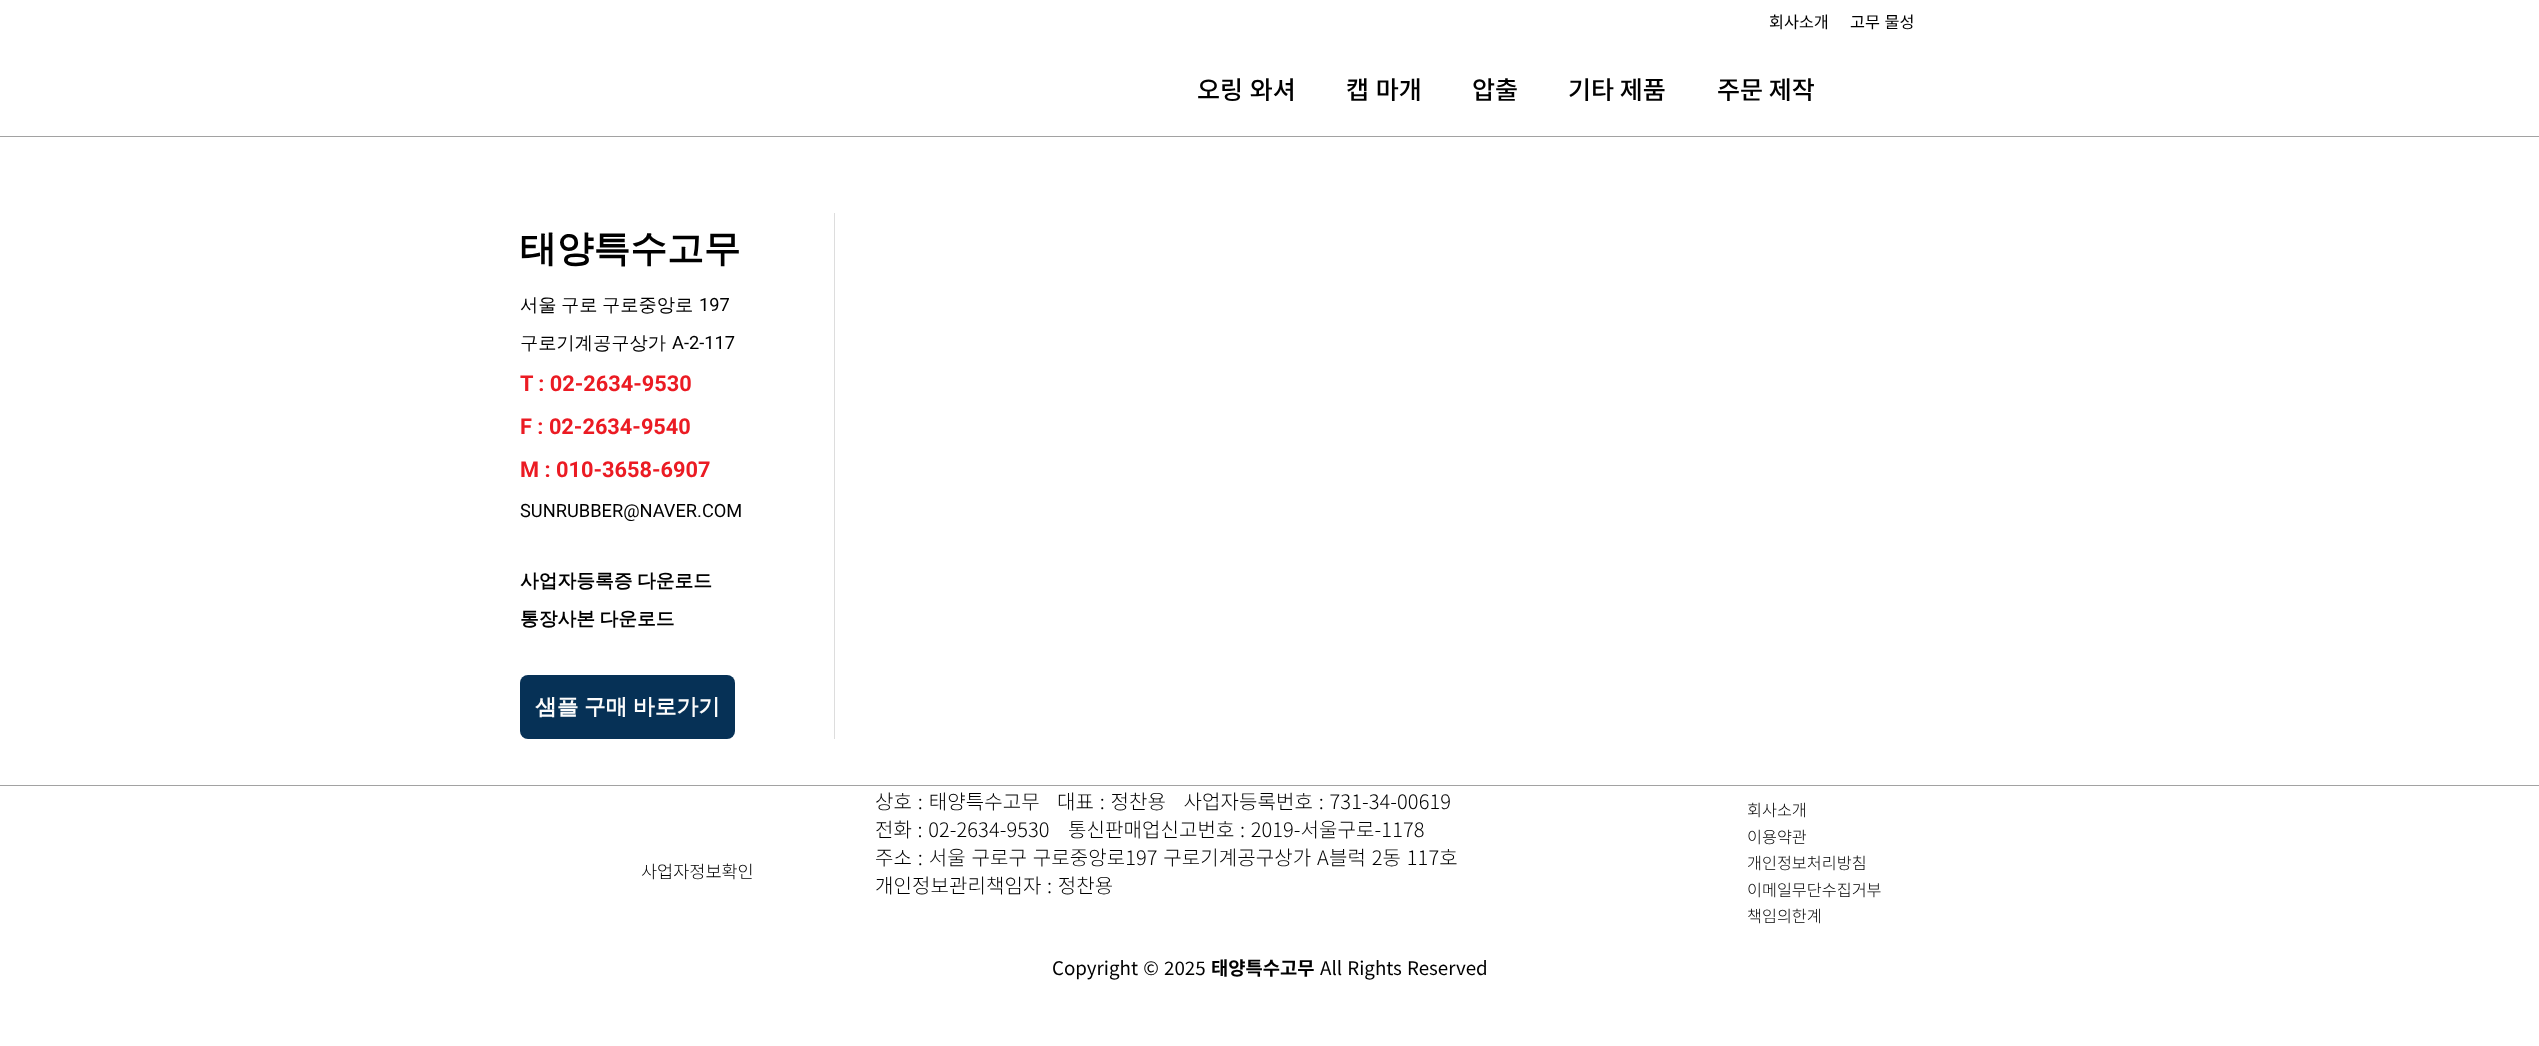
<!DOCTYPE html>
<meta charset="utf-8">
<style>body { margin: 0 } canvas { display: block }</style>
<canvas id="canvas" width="2539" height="1046"></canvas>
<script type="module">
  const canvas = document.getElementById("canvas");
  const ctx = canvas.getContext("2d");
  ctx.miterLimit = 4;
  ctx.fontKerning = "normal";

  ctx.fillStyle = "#ffffff";
  ctx.fillRect(0, 0, 2539, 1046);
  ctx.font = "16.25px Noto Sans KR";
  ctx.fillStyle = "#000000";
  ctx.fillText("회사소개", 1769, 28);
  ctx.wordSpacing = "1px";
  ctx.fillText("고무 물성", 1850, 28);
  ctx.fillStyle = "#a2a2a2";
  ctx.fillRect(0, 136, 2539, 1);
  ctx.font = "500 25px Noto Sans KR";
  ctx.fillStyle = "#000000";
  ctx.fillText("오링 와셔", 1197, 99);
  ctx.fillText("캡 마개", 1346, 99);
  ctx.wordSpacing = "0px";
  ctx.fillText("압출", 1472, 99);
  ctx.fillText("기타 제품", 1568, 99);
  ctx.fillText("주문 제작", 1717, 99);
  ctx.fillStyle = "#dddddd";
  ctx.fillRect(834, 213, 1, 526);
  ctx.font = "bold 36.75px WenQuanYi Zen Hei";
  ctx.fillStyle = "#000000";
  ctx.fillText("태양특수고무", 520, 261);
  ctx.wordSpacing = "-1px";
  ctx.font = "500 18.25px WenQuanYi Zen Hei";
  ctx.fillText("서울 구로 구로중앙로", 520, 311);
  ctx.wordSpacing = "0px";
  ctx.font = "18.25px Roboto";
  ctx.fillText("197", 699, 311);
  ctx.font = "500 18.25px WenQuanYi Zen Hei";
  ctx.fillText("구로기계공구상가", 520, 349);
  ctx.font = "18.25px Roboto";
  ctx.fillText("A-2-117", 672, 349);
  ctx.font = "bold 21.75px Roboto";
  ctx.fillStyle = "#eb1b23";
  ctx.fillText("T : 02-2634-9530", 520, 391);
  ctx.fillText("F : 02-2634-9540", 520, 434);
  ctx.fillText("M : 010-3658-6907", 520, 477);
  ctx.font = "18.25px Roboto";
  ctx.fillStyle = "#000000";
  ctx.fillText("SUNRUBBER@NAVER.COM", 520, 517);
  ctx.wordSpacing = "-1px";
  ctx.font = "bold 18.75px WenQuanYi Zen Hei";
  ctx.fillText("사업자등록증 다운로드", 520, 587);
  ctx.fillText("통장사본 다운로드", 520, 625);
  ctx.fillStyle = "#063156";
  ctx.beginPath();
  ctx.roundRect(520, 675, 215, 64, 8);
  ctx.fill();
  ctx.font = "bold 21.75px WenQuanYi Zen Hei";
  ctx.fillStyle = "#fcfcfc";
  ctx.fillText("샘플 구매 바로가기", 535, 714);
  ctx.fillStyle = "#a2a2a2";
  ctx.fillRect(0, 785, 2539, 1);
  ctx.wordSpacing = "0px";
  ctx.font = "300 17.5px Noto Sans KR";
  ctx.fillStyle = "#000000";
  ctx.fillText("사업자정보확인", 641, 878);
  ctx.letterSpacing = "0.1px";
  ctx.wordSpacing = "1.25px";
  ctx.font = "300 20px Noto Sans KR";
  ctx.fillText("상호 : 태양특수고무   대표 : 정찬용   사업자등록번호 : 731-34-00619", 875, 809);
  ctx.wordSpacing = "1px";
  ctx.fillText("전화 : 02-2634-9530", 875, 837);
  ctx.fillText("통신판매업신고번호 : 2019-서울구로-1178", 1068, 837);
  ctx.wordSpacing = "1.25px";
  ctx.fillText("주소 : 서울 구로구 구로중앙로197 구로기계공구상가 A블럭 2동 117호", 875, 865);
  ctx.wordSpacing = "1px";
  ctx.fillText("개인정보관리책임자 : 정찬용", 875, 893);
  ctx.letterSpacing = "0px";
  ctx.wordSpacing = "0px";
  ctx.font = "300 16.25px Noto Sans KR";
  ctx.fillText("회사소개", 1747, 816);
  ctx.fillText("이용약관", 1747, 843);
  ctx.fillText("개인정보처리방침", 1747, 869);
  ctx.fillText("이메일무단수집거부", 1747, 896);
  ctx.fillText("책임의한계", 1747, 922);
  ctx.wordSpacing = "1px";
  ctx.font = "18.75px Noto Sans KR";
  ctx.fillText("Copyright © 2025", 1052, 975);
  ctx.wordSpacing = "0px";
  ctx.font = "bold 18.75px Noto Sans KR";
  ctx.fillText("태양특수고무", 1211, 975);
  ctx.wordSpacing = "1px";
  ctx.font = "18.75px Noto Sans KR";
  ctx.fillText("All Rights Reserved", 1320, 975);
</script>
